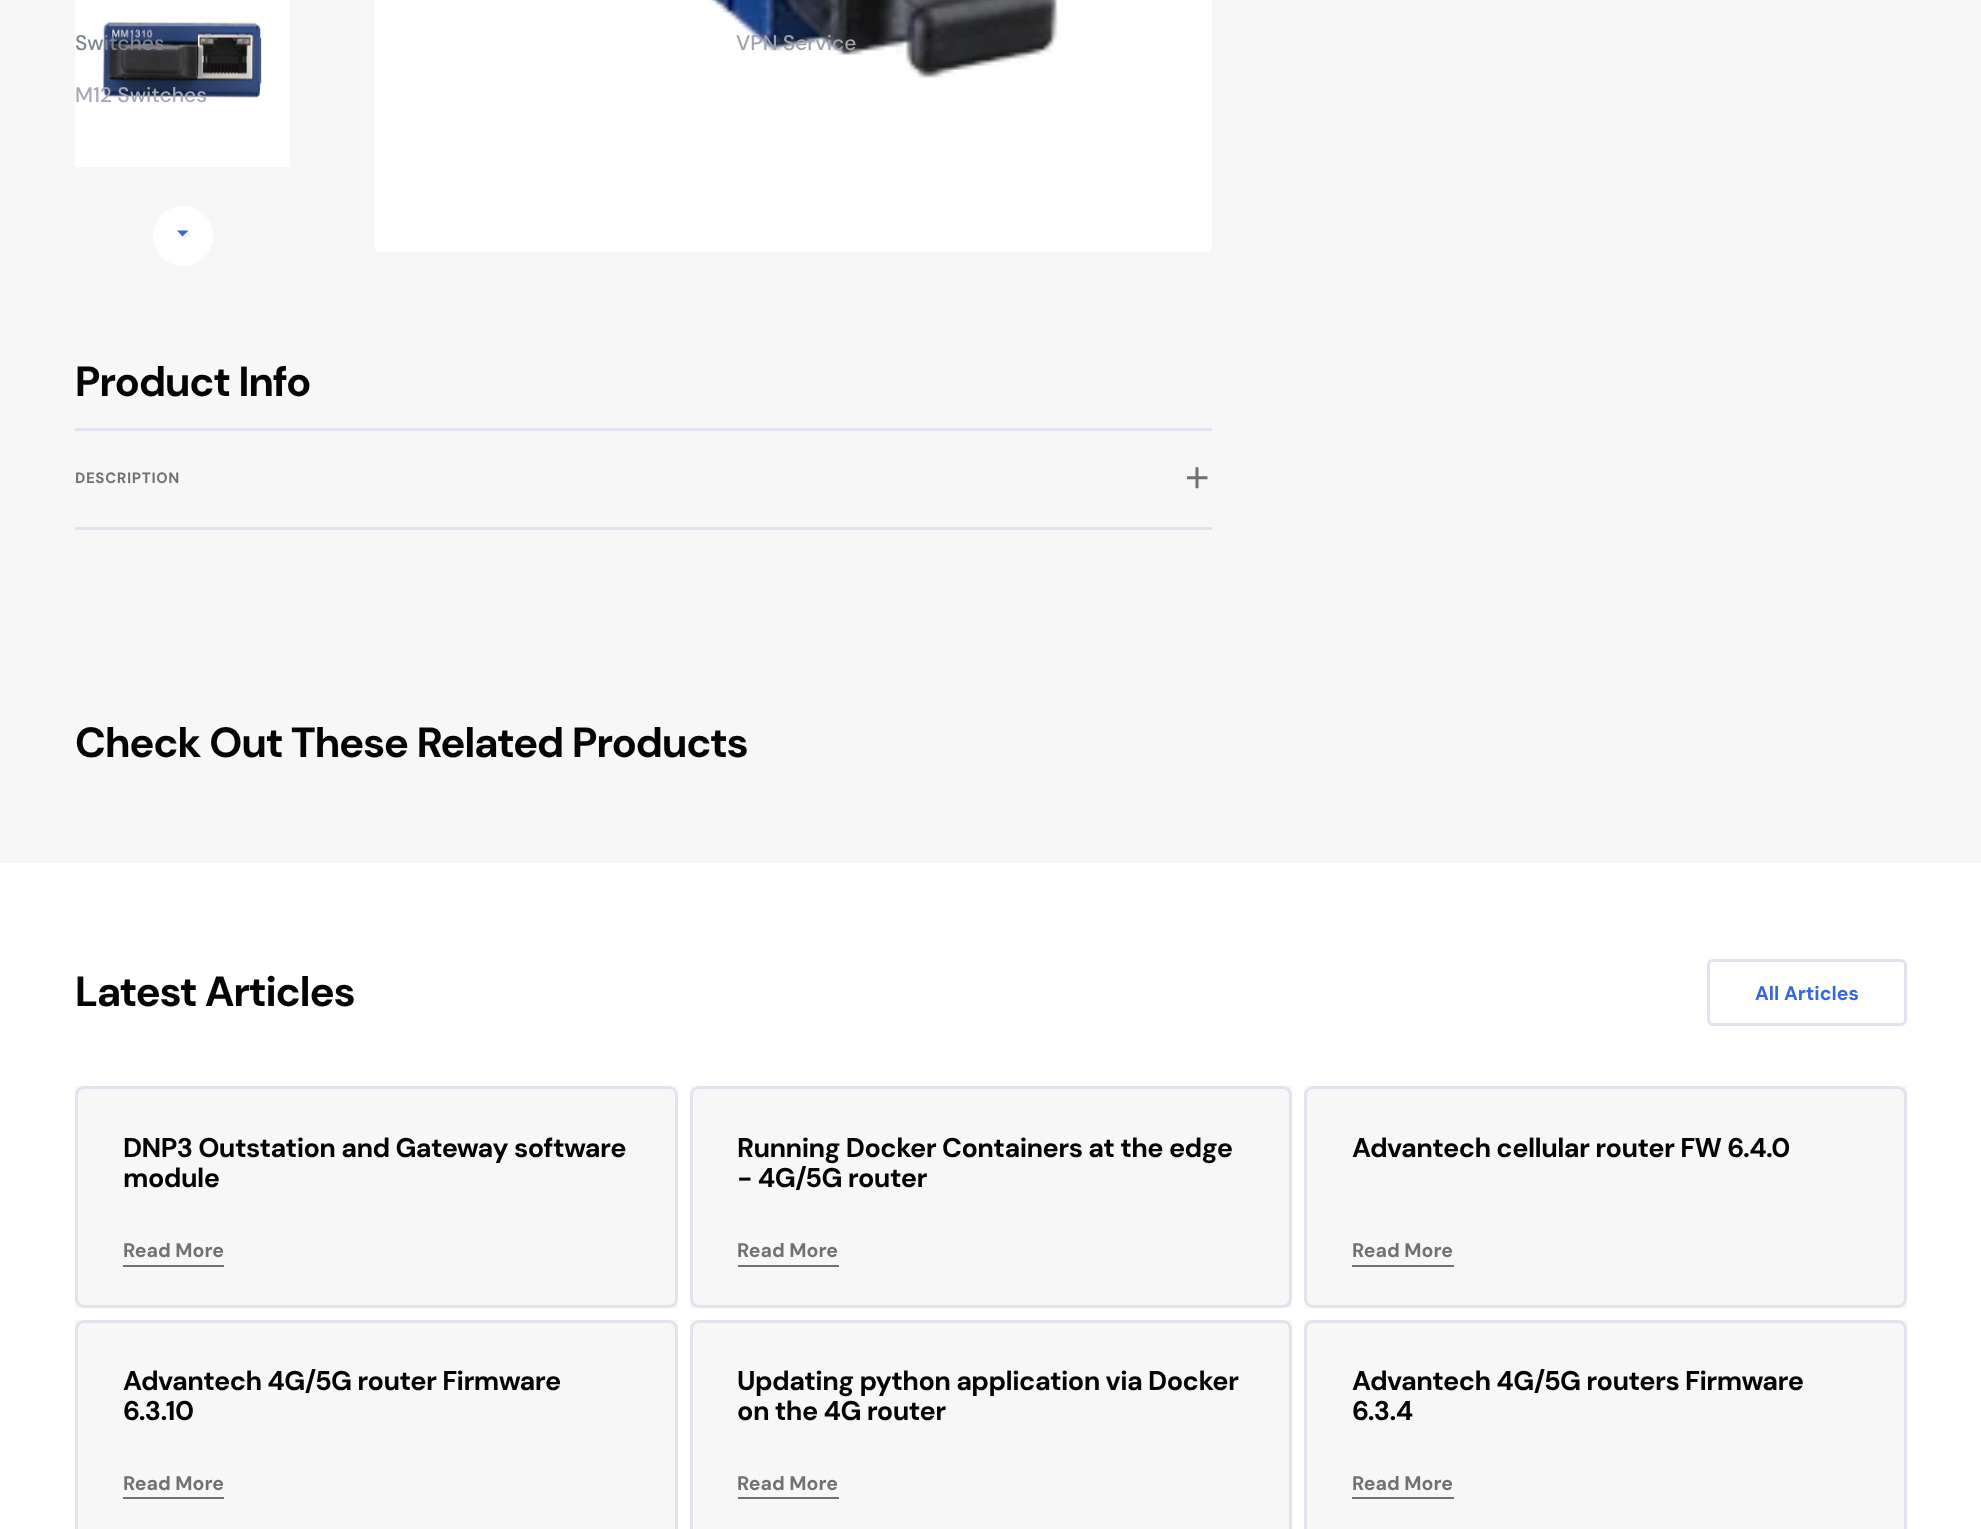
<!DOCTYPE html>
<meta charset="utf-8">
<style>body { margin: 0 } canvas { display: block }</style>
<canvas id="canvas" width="1981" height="1529"></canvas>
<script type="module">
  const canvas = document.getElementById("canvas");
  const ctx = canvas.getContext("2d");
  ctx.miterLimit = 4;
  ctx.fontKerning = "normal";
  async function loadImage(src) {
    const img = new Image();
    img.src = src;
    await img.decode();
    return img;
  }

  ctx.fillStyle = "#f7f7f7";
  ctx.fillRect(0, 0, 1981, 1529);
  ctx.fillStyle = "#ffffff";
  ctx.fillRect(75, 0, 215, 167);
  ctx.drawImage(await loadImage("img1.png"), 102, 21, 160, 77);
  ctx.font = "500 21px DM Sans";
  ctx.fillStyle = "#7e8491";
  ctx.fillText("Switches", 75, 50);
  ctx.fillStyle = "#a3a9b6";
  ctx.fillText("M12 Switches", 75, 102);
  ctx.fillStyle = "#ffffff";
  ctx.beginPath();
  ctx.roundRect(374, -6, 838, 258, 6);
  ctx.fill();
  ctx.drawImage(await loadImage("img2.png"), 709, 0, 351, 78);
  ctx.fillStyle = "#9da1ab";
  ctx.fillText("VPN Service", 736, 50);
  ctx.fillStyle = "#ffffff";
  ctx.beginPath();
  ctx.arc(183, 236, 30, 0, Math.PI * 2);
  ctx.fill();
  ctx.fillStyle = "#3565e0";
  ctx.beginPath();
  ctx.moveTo(182.5, 236.5);
  ctx.lineTo(177, 230.5);
  ctx.lineTo(188.5, 230.5);
  ctx.closePath();
  ctx.fill();
  ctx.letterSpacing = "-0.85px";
  ctx.font = "bold 42px DM Sans";
  ctx.fillStyle = "#040404";
  ctx.fillText("Product Info", 75, 396);
  ctx.fillStyle = "#e0e3ee";
  ctx.fillRect(75, 428, 1137, 3);
  ctx.fillRect(75, 527, 1137, 3);
  ctx.letterSpacing = "0.6px";
  ctx.font = "bold 15px 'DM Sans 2'";
  ctx.fillStyle = "#717171";
  ctx.fillText("DESCRIPTION", 75, 483);
  ctx.drawImage(await loadImage("img3.png"), 1187, 467, 21, 22);
  ctx.letterSpacing = "-0.85px";
  ctx.font = "bold 42px DM Sans";
  ctx.fillStyle = "#040404";
  ctx.fillText("Check Out These Related Products", 75, 757);
  ctx.fillStyle = "#ffffff";
  ctx.fillRect(0, 863, 1981, 666);
  ctx.fillStyle = "#040404";
  ctx.fillText("Latest Articles", 75, 1006);
  ctx.beginPath();
  ctx.roundRect(1708.5, 960.5, 197, 64, 4.5);
  ctx.strokeStyle = "#e0e3ee";
  ctx.lineWidth = 3;
  ctx.stroke();
  ctx.letterSpacing = "0px";
  ctx.font = "bold 19.5px 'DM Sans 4'";
  ctx.fillStyle = "#3565e0";
  ctx.fillText("All Articles", 1755, 1000);
  ctx.fillStyle = "#f7f7f7";
  ctx.fillRect(75, 1086, 603, 222);
  ctx.beginPath();
  ctx.roundRect(76.5, 1087.5, 600, 219, 7.5);
  ctx.stroke();
  ctx.letterSpacing = "-0.55px";
  ctx.font = "bold 27px 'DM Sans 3'";
  ctx.fillStyle = "#040404";
  ctx.fillText("DNP3 Outstation and Gateway software", 123, 1157);
  ctx.fillText("module", 123, 1187);
  ctx.letterSpacing = "0px";
  ctx.font = "bold 19.5px 'DM Sans 4'";
  ctx.fillStyle = "#717171";
  ctx.fillText("Read More", 123, 1257);
  ctx.fillRect(123, 1265, 101, 2);
  ctx.fillStyle = "#f7f7f7";
  ctx.fillRect(690, 1086, 602, 222);
  ctx.beginPath();
  ctx.roundRect(691.5, 1087.5, 599, 219, 7.5);
  ctx.stroke();
  ctx.letterSpacing = "-0.55px";
  ctx.font = "bold 27px 'DM Sans 3'";
  ctx.fillStyle = "#040404";
  ctx.fillText("Running Docker Containers at the edge", 737, 1157);
  ctx.fillText("- 4G/5G router", 737, 1187);
  ctx.letterSpacing = "0px";
  ctx.font = "bold 19.5px 'DM Sans 4'";
  ctx.fillStyle = "#717171";
  ctx.fillText("Read More", 737, 1257);
  ctx.fillRect(738, 1265, 101, 2);
  ctx.fillStyle = "#f7f7f7";
  ctx.fillRect(1304, 1086, 603, 222);
  ctx.beginPath();
  ctx.roundRect(1305.5, 1087.5, 600, 219, 7.5);
  ctx.stroke();
  ctx.letterSpacing = "-0.55px";
  ctx.font = "bold 27px 'DM Sans 3'";
  ctx.fillStyle = "#040404";
  ctx.fillText("Advantech cellular router FW 6.4.0", 1352, 1157);
  ctx.letterSpacing = "0px";
  ctx.font = "bold 19.5px 'DM Sans 4'";
  ctx.fillStyle = "#717171";
  ctx.fillText("Read More", 1352, 1257);
  ctx.fillRect(1352, 1265, 102, 2);
  ctx.fillStyle = "#f7f7f7";
  ctx.fillRect(75, 1320, 603, 209);
  ctx.beginPath();
  ctx.roundRect(76.5, 1321.5, 600, 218, 7.5);
  ctx.stroke();
  ctx.letterSpacing = "-0.55px";
  ctx.font = "bold 27px 'DM Sans 3'";
  ctx.fillStyle = "#040404";
  ctx.fillText("Advantech 4G/5G router Firmware", 123, 1390);
  ctx.fillText("6.3.10", 123, 1420);
  ctx.letterSpacing = "0px";
  ctx.font = "bold 19.5px 'DM Sans 4'";
  ctx.fillStyle = "#717171";
  ctx.fillText("Read More", 123, 1490);
  ctx.fillRect(123, 1497, 101, 2);
  ctx.fillStyle = "#f7f7f7";
  ctx.fillRect(690, 1320, 602, 209);
  ctx.beginPath();
  ctx.roundRect(691.5, 1321.5, 599, 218, 7.5);
  ctx.stroke();
  ctx.letterSpacing = "-0.55px";
  ctx.font = "bold 27px 'DM Sans 3'";
  ctx.fillStyle = "#040404";
  ctx.fillText("Updating python application via Docker", 737, 1390);
  ctx.fillText("on the 4G router", 737, 1420);
  ctx.letterSpacing = "0px";
  ctx.font = "bold 19.5px 'DM Sans 4'";
  ctx.fillStyle = "#717171";
  ctx.fillText("Read More", 737, 1490);
  ctx.fillRect(738, 1497, 101, 2);
  ctx.fillStyle = "#f7f7f7";
  ctx.fillRect(1304, 1320, 603, 209);
  ctx.beginPath();
  ctx.roundRect(1305.5, 1321.5, 600, 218, 7.5);
  ctx.stroke();
  ctx.letterSpacing = "-0.55px";
  ctx.font = "bold 27px 'DM Sans 3'";
  ctx.fillStyle = "#040404";
  ctx.fillText("Advantech 4G/5G routers Firmware", 1352, 1390);
  ctx.fillText("6.3.4", 1352, 1420);
  ctx.letterSpacing = "0px";
  ctx.font = "bold 19.5px 'DM Sans 4'";
  ctx.fillStyle = "#717171";
  ctx.fillText("Read More", 1352, 1490);
  ctx.fillRect(1352, 1497, 102, 2);
</script>
